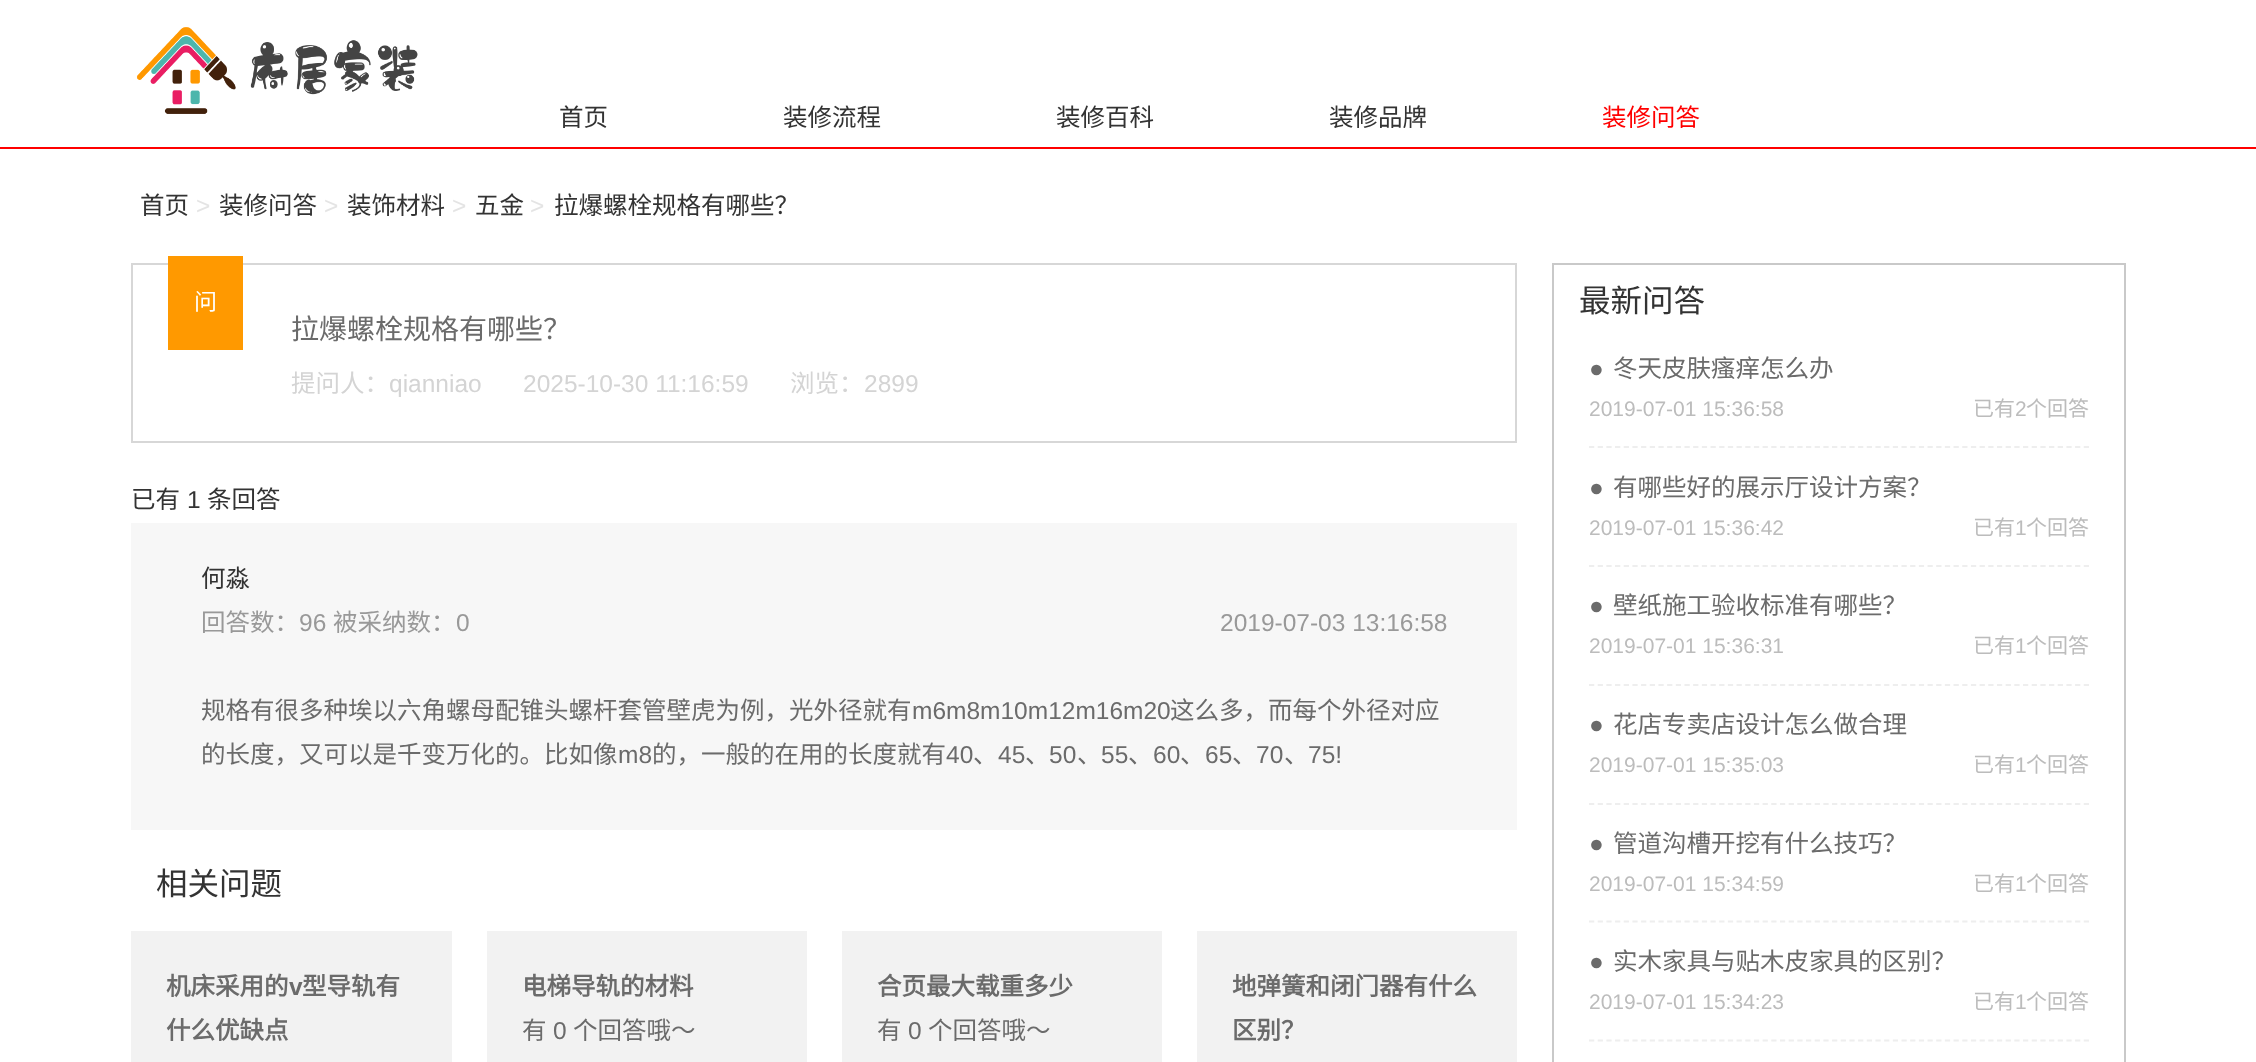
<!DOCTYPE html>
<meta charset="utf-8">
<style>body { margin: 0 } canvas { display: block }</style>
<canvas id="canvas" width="2256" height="1062"></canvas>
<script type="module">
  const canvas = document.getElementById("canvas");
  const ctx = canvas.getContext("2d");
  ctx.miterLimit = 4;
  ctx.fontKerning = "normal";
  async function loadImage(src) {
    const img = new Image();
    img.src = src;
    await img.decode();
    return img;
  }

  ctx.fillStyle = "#ffffff";
  ctx.fillRect(0, 0, 2256, 1062);
  ctx.fillStyle = "#ff0000";
  ctx.fillRect(0, 147, 2256, 2);
  ctx.drawImage(await loadImage("img1.png"), 136, 27, 282, 87);
  ctx.font = "24.5px Noto Sans CJK SC";
  ctx.fillStyle = "#333333";
  ctx.fillText("首页", 559, 126);
  ctx.fillText("装修流程", 783, 126);
  ctx.fillText("装修百科", 1056, 126);
  ctx.fillText("装修品牌", 1329, 126);
  ctx.fillStyle = "#ff0000";
  ctx.fillText("装修问答", 1602, 126);
  ctx.fillStyle = "#333333";
  ctx.fillText("首页", 140, 214);
  ctx.font = "24.5px Liberation Sans";
  ctx.fillStyle = "#e4e4e4";
  ctx.fillText(">", 196, 214);
  ctx.font = "24.5px Noto Sans CJK SC";
  ctx.fillStyle = "#333333";
  ctx.fillText("装修问答", 219, 214);
  ctx.font = "24.5px Liberation Sans";
  ctx.fillStyle = "#e4e4e4";
  ctx.fillText(">", 324, 214);
  ctx.font = "24.5px Noto Sans CJK SC";
  ctx.fillStyle = "#333333";
  ctx.fillText("装饰材料", 347, 214);
  ctx.font = "24.5px Liberation Sans";
  ctx.fillStyle = "#e4e4e4";
  ctx.fillText(">", 452, 214);
  ctx.font = "24.5px Noto Sans CJK SC";
  ctx.fillStyle = "#333333";
  ctx.fillText("五金", 475, 214);
  ctx.font = "24.5px Liberation Sans";
  ctx.fillStyle = "#e4e4e4";
  ctx.fillText(">", 530, 214);
  ctx.font = "24.5px Noto Sans CJK SC";
  ctx.fillStyle = "#333333";
  ctx.fillText("拉爆螺栓规格有哪些？", 554, 214);
  ctx.strokeStyle = "#d7d7d7";
  ctx.lineWidth = 2;
  ctx.strokeRect(132, 264, 1384, 178);
  ctx.fillStyle = "#ff9900";
  ctx.fillRect(168, 256, 75, 94);
  ctx.font = "23px Noto Sans CJK SC";
  ctx.fillStyle = "#ffffff";
  ctx.fillText("问", 194, 310);
  ctx.font = "28px Noto Sans CJK SC";
  ctx.fillStyle = "#6b6b6b";
  ctx.fillText("拉爆螺栓规格有哪些？", 291, 339);
  ctx.font = "24.5px Noto Sans CJK SC";
  ctx.fillStyle = "#d4d4d4";
  ctx.fillText("提问人：", 291, 392);
  ctx.font = "24.5px Liberation Sans";
  ctx.fillText("qianniao", 389, 392);
  ctx.fillText("2025-10-30 11:16:59", 523, 392);
  ctx.font = "24.5px Noto Sans CJK SC";
  ctx.fillText("浏览：", 790, 392);
  ctx.font = "24.5px Liberation Sans";
  ctx.fillText("2899", 864, 392);
  ctx.font = "24.5px Noto Sans CJK SC";
  ctx.fillStyle = "#333333";
  ctx.fillText("已有", 131, 508);
  ctx.font = "24.5px Liberation Sans";
  ctx.fillText("1", 187, 508);
  ctx.font = "24.5px Noto Sans CJK SC";
  ctx.fillText("条回答", 207, 508);
  ctx.fillStyle = "#f7f7f7";
  ctx.fillRect(131, 523, 1386, 307);
  ctx.fillStyle = "#333333";
  ctx.fillText("何淼", 201, 587);
  ctx.fillStyle = "#999999";
  ctx.fillText("回答数：", 201, 631);
  ctx.font = "24.5px Liberation Sans";
  ctx.fillText("96", 299, 631);
  ctx.font = "24.5px Noto Sans CJK SC";
  ctx.fillText("被采纳数：", 333, 631);
  ctx.font = "24.5px Liberation Sans";
  ctx.fillText("0", 456, 631);
  ctx.fillText("2019-07-03 13:16:58", 1220, 631);
  ctx.font = "24.5px Noto Sans CJK SC";
  ctx.fillStyle = "#6b6b6b";
  ctx.fillText("规格有很多种埃以六角螺母配锥头螺杆套管壁虎为例，光外径就有", 201, 719);
  ctx.font = "24.5px Liberation Sans";
  ctx.fillText("m6m8m10m12m16m20", 912, 719);
  ctx.font = "24.5px Noto Sans CJK SC";
  ctx.fillText("这么多，而每个外径对应", 1170, 719);
  ctx.fillText("的长度，又可以是千变万化的。比如像", 201, 763);
  ctx.font = "24.5px Liberation Sans";
  ctx.fillText("m8", 618, 763);
  ctx.font = "24.5px Noto Sans CJK SC";
  ctx.fillText("的，一般的在用的长度就有", 652, 763);
  ctx.font = "24.5px Liberation Sans";
  ctx.fillText("40", 946, 763);
  ctx.font = "24.5px Noto Sans CJK SC";
  ctx.fillText("、", 973, 763);
  ctx.font = "24.5px Liberation Sans";
  ctx.fillText("45", 998, 763);
  ctx.font = "24.5px Noto Sans CJK SC";
  ctx.fillText("、", 1025, 763);
  ctx.font = "24.5px Liberation Sans";
  ctx.fillText("50", 1049, 763);
  ctx.font = "24.5px Noto Sans CJK SC";
  ctx.fillText("、", 1077, 763);
  ctx.font = "24.5px Liberation Sans";
  ctx.fillText("55", 1101, 763);
  ctx.font = "24.5px Noto Sans CJK SC";
  ctx.fillText("、", 1128, 763);
  ctx.font = "24.5px Liberation Sans";
  ctx.fillText("60", 1153, 763);
  ctx.font = "24.5px Noto Sans CJK SC";
  ctx.fillText("、", 1180, 763);
  ctx.font = "24.5px Liberation Sans";
  ctx.fillText("65", 1205, 763);
  ctx.font = "24.5px Noto Sans CJK SC";
  ctx.fillText("、", 1232, 763);
  ctx.font = "24.5px Liberation Sans";
  ctx.fillText("70", 1256, 763);
  ctx.font = "24.5px Noto Sans CJK SC";
  ctx.fillText("、", 1284, 763);
  ctx.font = "24.5px Liberation Sans";
  ctx.fillText("75!", 1308, 763);
  ctx.font = "31.5px Noto Sans CJK SC";
  ctx.fillStyle = "#333333";
  ctx.fillText("相关问题", 156, 895);
  ctx.fillStyle = "#f2f2f2";
  ctx.fillRect(131, 931, 321, 131);
  ctx.font = "bold 24.5px Noto Sans CJK SC";
  ctx.fillStyle = "#6b6b6b";
  ctx.fillText("机床采用的", 166, 995);
  ctx.font = "bold 24.5px Liberation Sans";
  ctx.fillText("v", 289, 995);
  ctx.font = "bold 24.5px Noto Sans CJK SC";
  ctx.fillText("型导轨有", 302, 995);
  ctx.fillText("什么优缺点", 166, 1039);
  ctx.fillStyle = "#f2f2f2";
  ctx.fillRect(487, 931, 320, 131);
  ctx.fillStyle = "#6b6b6b";
  ctx.fillText("电梯导轨的材料", 522, 995);
  ctx.font = "24.5px Noto Sans CJK SC";
  ctx.fillText("有", 522, 1039);
  ctx.font = "24.5px Liberation Sans";
  ctx.fillText("0", 553, 1039);
  ctx.font = "24.5px Noto Sans CJK SC";
  ctx.fillText("个回答哦～", 573, 1039);
  ctx.fillStyle = "#f2f2f2";
  ctx.fillRect(842, 931, 320, 131);
  ctx.font = "bold 24.5px Noto Sans CJK SC";
  ctx.fillStyle = "#6b6b6b";
  ctx.fillText("合页最大载重多少", 877, 995);
  ctx.font = "24.5px Noto Sans CJK SC";
  ctx.fillText("有", 877, 1039);
  ctx.font = "24.5px Liberation Sans";
  ctx.fillText("0", 908, 1039);
  ctx.font = "24.5px Noto Sans CJK SC";
  ctx.fillText("个回答哦～", 928, 1039);
  ctx.fillStyle = "#f2f2f2";
  ctx.fillRect(1197, 931, 320, 131);
  ctx.font = "bold 24.5px Noto Sans CJK SC";
  ctx.fillStyle = "#6b6b6b";
  ctx.fillText("地弹簧和闭门器有什么", 1232, 995);
  ctx.fillText("区别？", 1232, 1039);
  ctx.strokeStyle = "#c9c9c9";
  ctx.strokeRect(1553, 264, 572, 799);
  ctx.font = "31.5px Noto Sans CJK SC";
  ctx.fillStyle = "#333333";
  ctx.fillText("最新问答", 1579, 312);
  ctx.font = "24.5px Liberation Sans";
  ctx.fillStyle = "#6b6b6b";
  ctx.fillText("●", 1589, 377);
  ctx.font = "24.5px Noto Sans CJK SC";
  ctx.fillText("冬天皮肤瘙痒怎么办", 1613, 377);
  ctx.beginPath();
  ctx.moveTo(1589, 447);
  ctx.lineTo(2089.5, 447);
  ctx.strokeStyle = "#eeeeee";
  ctx.lineWidth = 1.8;
  ctx.setLineDash([5.25, 3.43]);
  ctx.stroke();
  ctx.font = "21px Liberation Sans";
  ctx.fillStyle = "#bcbcbc";
  ctx.fillText("2019-07-01 15:36:58", 1589, 416);
  ctx.font = "21px Noto Sans CJK SC";
  ctx.fillText("已有", 1973, 416);
  ctx.font = "21px Liberation Sans";
  ctx.fillText("2", 2015, 416);
  ctx.font = "21px Noto Sans CJK SC";
  ctx.fillText("个回答", 2026, 416);
  ctx.font = "24.5px Liberation Sans";
  ctx.fillStyle = "#6b6b6b";
  ctx.fillText("●", 1589, 496);
  ctx.font = "24.5px Noto Sans CJK SC";
  ctx.fillText("有哪些好的展示厅设计方案？", 1613, 496);
  ctx.beginPath();
  ctx.moveTo(1589, 566);
  ctx.lineTo(2089.5, 566);
  ctx.stroke();
  ctx.font = "21px Liberation Sans";
  ctx.fillStyle = "#bcbcbc";
  ctx.fillText("2019-07-01 15:36:42", 1589, 535);
  ctx.font = "21px Noto Sans CJK SC";
  ctx.fillText("已有", 1973, 535);
  ctx.font = "21px Liberation Sans";
  ctx.fillText("1", 2015, 535);
  ctx.font = "21px Noto Sans CJK SC";
  ctx.fillText("个回答", 2026, 535);
  ctx.font = "24.5px Liberation Sans";
  ctx.fillStyle = "#6b6b6b";
  ctx.fillText("●", 1589, 614);
  ctx.font = "24.5px Noto Sans CJK SC";
  ctx.fillText("壁纸施工验收标准有哪些？", 1613, 614);
  ctx.beginPath();
  ctx.moveTo(1589, 685);
  ctx.lineTo(2089.5, 685);
  ctx.stroke();
  ctx.font = "21px Liberation Sans";
  ctx.fillStyle = "#bcbcbc";
  ctx.fillText("2019-07-01 15:36:31", 1589, 653);
  ctx.font = "21px Noto Sans CJK SC";
  ctx.fillText("已有", 1973, 653);
  ctx.font = "21px Liberation Sans";
  ctx.fillText("1", 2015, 653);
  ctx.font = "21px Noto Sans CJK SC";
  ctx.fillText("个回答", 2026, 653);
  ctx.font = "24.5px Liberation Sans";
  ctx.fillStyle = "#6b6b6b";
  ctx.fillText("●", 1589, 733);
  ctx.font = "24.5px Noto Sans CJK SC";
  ctx.fillText("花店专卖店设计怎么做合理", 1613, 733);
  ctx.beginPath();
  ctx.moveTo(1589, 804);
  ctx.lineTo(2089.5, 804);
  ctx.stroke();
  ctx.font = "21px Liberation Sans";
  ctx.fillStyle = "#bcbcbc";
  ctx.fillText("2019-07-01 15:35:03", 1589, 772);
  ctx.font = "21px Noto Sans CJK SC";
  ctx.fillText("已有", 1973, 772);
  ctx.font = "21px Liberation Sans";
  ctx.fillText("1", 2015, 772);
  ctx.font = "21px Noto Sans CJK SC";
  ctx.fillText("个回答", 2026, 772);
  ctx.font = "24.5px Liberation Sans";
  ctx.fillStyle = "#6b6b6b";
  ctx.fillText("●", 1589, 852);
  ctx.font = "24.5px Noto Sans CJK SC";
  ctx.fillText("管道沟槽开挖有什么技巧？", 1613, 852);
  ctx.beginPath();
  ctx.moveTo(1589, 921.5);
  ctx.lineTo(2089.5, 921.5);
  ctx.stroke();
  ctx.font = "21px Liberation Sans";
  ctx.fillStyle = "#bcbcbc";
  ctx.fillText("2019-07-01 15:34:59", 1589, 891);
  ctx.font = "21px Noto Sans CJK SC";
  ctx.fillText("已有", 1973, 891);
  ctx.font = "21px Liberation Sans";
  ctx.fillText("1", 2015, 891);
  ctx.font = "21px Noto Sans CJK SC";
  ctx.fillText("个回答", 2026, 891);
  ctx.font = "24.5px Liberation Sans";
  ctx.fillStyle = "#6b6b6b";
  ctx.fillText("●", 1589, 970);
  ctx.font = "24.5px Noto Sans CJK SC";
  ctx.fillText("实木家具与贴木皮家具的区别？", 1613, 970);
  ctx.beginPath();
  ctx.moveTo(1589, 1040.5);
  ctx.lineTo(2089.5, 1040.5);
  ctx.stroke();
  ctx.font = "21px Liberation Sans";
  ctx.fillStyle = "#bcbcbc";
  ctx.fillText("2019-07-01 15:34:23", 1589, 1009);
  ctx.font = "21px Noto Sans CJK SC";
  ctx.fillText("已有", 1973, 1009);
  ctx.font = "21px Liberation Sans";
  ctx.fillText("1", 2015, 1009);
  ctx.font = "21px Noto Sans CJK SC";
  ctx.fillText("个回答", 2026, 1009);
</script>
